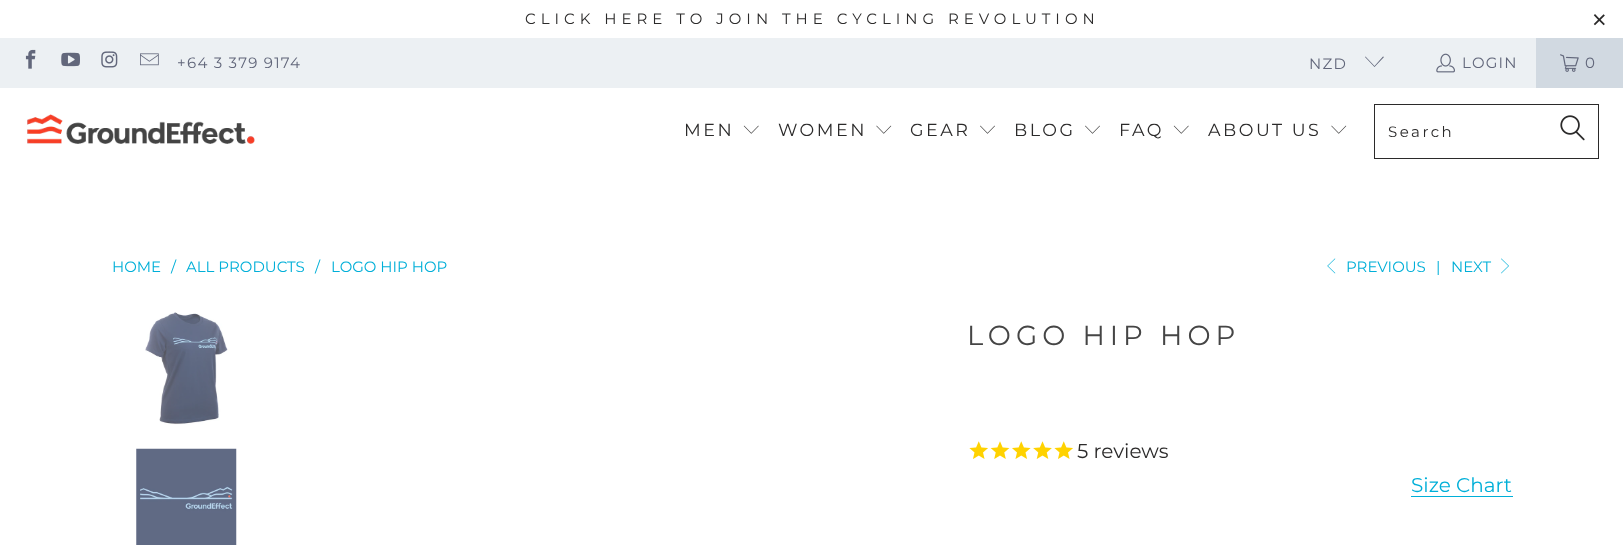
<!DOCTYPE html>
<meta charset="utf-8">
<style>body { margin: 0 } canvas { display: block }</style>
<canvas id="canvas" width="1623" height="545"></canvas>
<script type="module">
  const canvas = document.getElementById("canvas");
  const ctx = canvas.getContext("2d");
  ctx.miterLimit = 4;
  ctx.fontKerning = "normal";
  async function loadImage(src) {
    const img = new Image();
    img.src = src;
    await img.decode();
    return img;
  }

  ctx.fillStyle = "#ffffff";
  ctx.fillRect(0, 0, 1623, 545);
  ctx.letterSpacing = "5px";
  ctx.font = "15px Montserrat";
  ctx.fillStyle = "#2b2a2a";
  ctx.fillText("CLICK HERE TO JOIN THE CYCLING REVOLUTION", 525, 24);
  ctx.font = "25px Liberation Sans";
  ctx.fillText("×", 1592, 28);
  ctx.fillStyle = "#ecf0f3";
  ctx.fillRect(0, 38, 1536, 50);
  ctx.drawImage(await loadImage("img1.png"), 25, 49, 11, 20);
  ctx.drawImage(await loadImage("img2.png"), 61, 52, 19, 15);
  ctx.drawImage(await loadImage("img3.png"), 101, 51, 17, 17);
  ctx.drawImage(await loadImage("img4.png"), 140, 53, 19, 13);
  ctx.letterSpacing = "1.25px";
  ctx.font = "15px Montserrat";
  ctx.fillStyle = "#62677b";
  ctx.fillText("+64 3 379 9174", 177, 68);
  ctx.fillText("NZD", 1309, 69);
  ctx.beginPath();
  ctx.moveTo(1374.5, 67);
  ctx.lineTo(1365, 57);
  ctx.lineTo(1365.5, 56.5);
  ctx.lineTo(1374.5, 66);
  ctx.lineTo(1383, 56.5);
  ctx.lineTo(1384, 57);
  ctx.closePath();
  ctx.fill();
  ctx.drawImage(await loadImage("img5.png"), 1436, 53, 19, 20);
  ctx.fillText("LOGIN", 1462, 68);
  ctx.fillStyle = "#d1d9e1";
  ctx.fillRect(1536, 38, 87, 50);
  ctx.drawImage(await loadImage("img6.png"), 1560, 54, 19, 18);
  ctx.fillStyle = "#62677b";
  ctx.fillText("0", 1585, 68);
  ctx.drawImage(await loadImage("img7.png"), 27, 114, 228, 30);
  ctx.letterSpacing = "2.5px";
  ctx.font = "17.5px Montserrat";
  ctx.fillStyle = "#2b2a2a";
  ctx.fillText("MEN", 684, 136);
  ctx.drawImage(await loadImage("img8.png"), 743, 125, 16, 9);
  ctx.fillText("WOMEN", 778, 136);
  ctx.drawImage(await loadImage("img9.png"), 876, 125, 16, 9);
  ctx.fillText("GEAR", 910, 136);
  ctx.drawImage(await loadImage("img10.png"), 980, 125, 15, 9);
  ctx.fillText("BLOG", 1014, 136);
  ctx.drawImage(await loadImage("img10.png"), 1085, 125, 15, 9);
  ctx.fillText("FAQ", 1119, 136);
  ctx.drawImage(await loadImage("img8.png"), 1173, 125, 16, 9);
  ctx.fillText("ABOUT US", 1208, 136);
  ctx.drawImage(await loadImage("img9.png"), 1331, 125, 16, 9);
  ctx.strokeStyle = "#2b2a2a";
  ctx.strokeRect(1374.5, 104.5, 224, 54);
  ctx.font = "15px Montserrat";
  ctx.fillText("Search", 1388, 137);
  ctx.drawImage(await loadImage("img11.png"), 1560, 115, 25, 26);
  ctx.letterSpacing = "0px";
  ctx.fillStyle = "#00afd8";
  ctx.fillText("HOME", 112, 272);
  ctx.fillText("/", 171, 272);
  ctx.fillText("ALL PRODUCTS", 186, 272);
  ctx.fillText("/", 315, 272);
  ctx.fillText("LOGO HIP HOP", 331, 272);
  ctx.drawImage(await loadImage("img12.png"), 1327, 258, 9, 16);
  ctx.fillText("PREVIOUS", 1346, 272);
  ctx.fillText("|", 1436, 272);
  ctx.fillText("NEXT", 1451, 272);
  ctx.drawImage(await loadImage("img13.png"), 1501, 258, 8, 16);
  ctx.drawImage(await loadImage("img14.png"), 145, 312, 85, 113);
  ctx.drawImage(await loadImage("img15.png"), 136, 448, 101, 97);
  ctx.letterSpacing = "5px";
  ctx.font = "27.5px Montserrat";
  ctx.fillStyle = "#454545";
  ctx.fillText("LOGO HIP HOP", 967, 345);
  ctx.drawImage(await loadImage("img16.png"), 969, 441, 19, 18);
  ctx.drawImage(await loadImage("img17.png"), 990, 441, 20, 18);
  ctx.drawImage(await loadImage("img18.png"), 1012, 441, 19, 18);
  ctx.drawImage(await loadImage("img19.png"), 1033, 441, 19, 18);
  ctx.drawImage(await loadImage("img16.png"), 1054, 441, 19, 18);
  ctx.letterSpacing = "0px";
  ctx.font = "20px Montserrat";
  ctx.fillStyle = "#2b2a2a";
  ctx.fillText("5 reviews", 1077, 458);
  ctx.fillStyle = "#00afd8";
  ctx.fillText("Size Chart", 1411, 492);
  ctx.fillRect(1411, 496, 102, 1);
</script>
